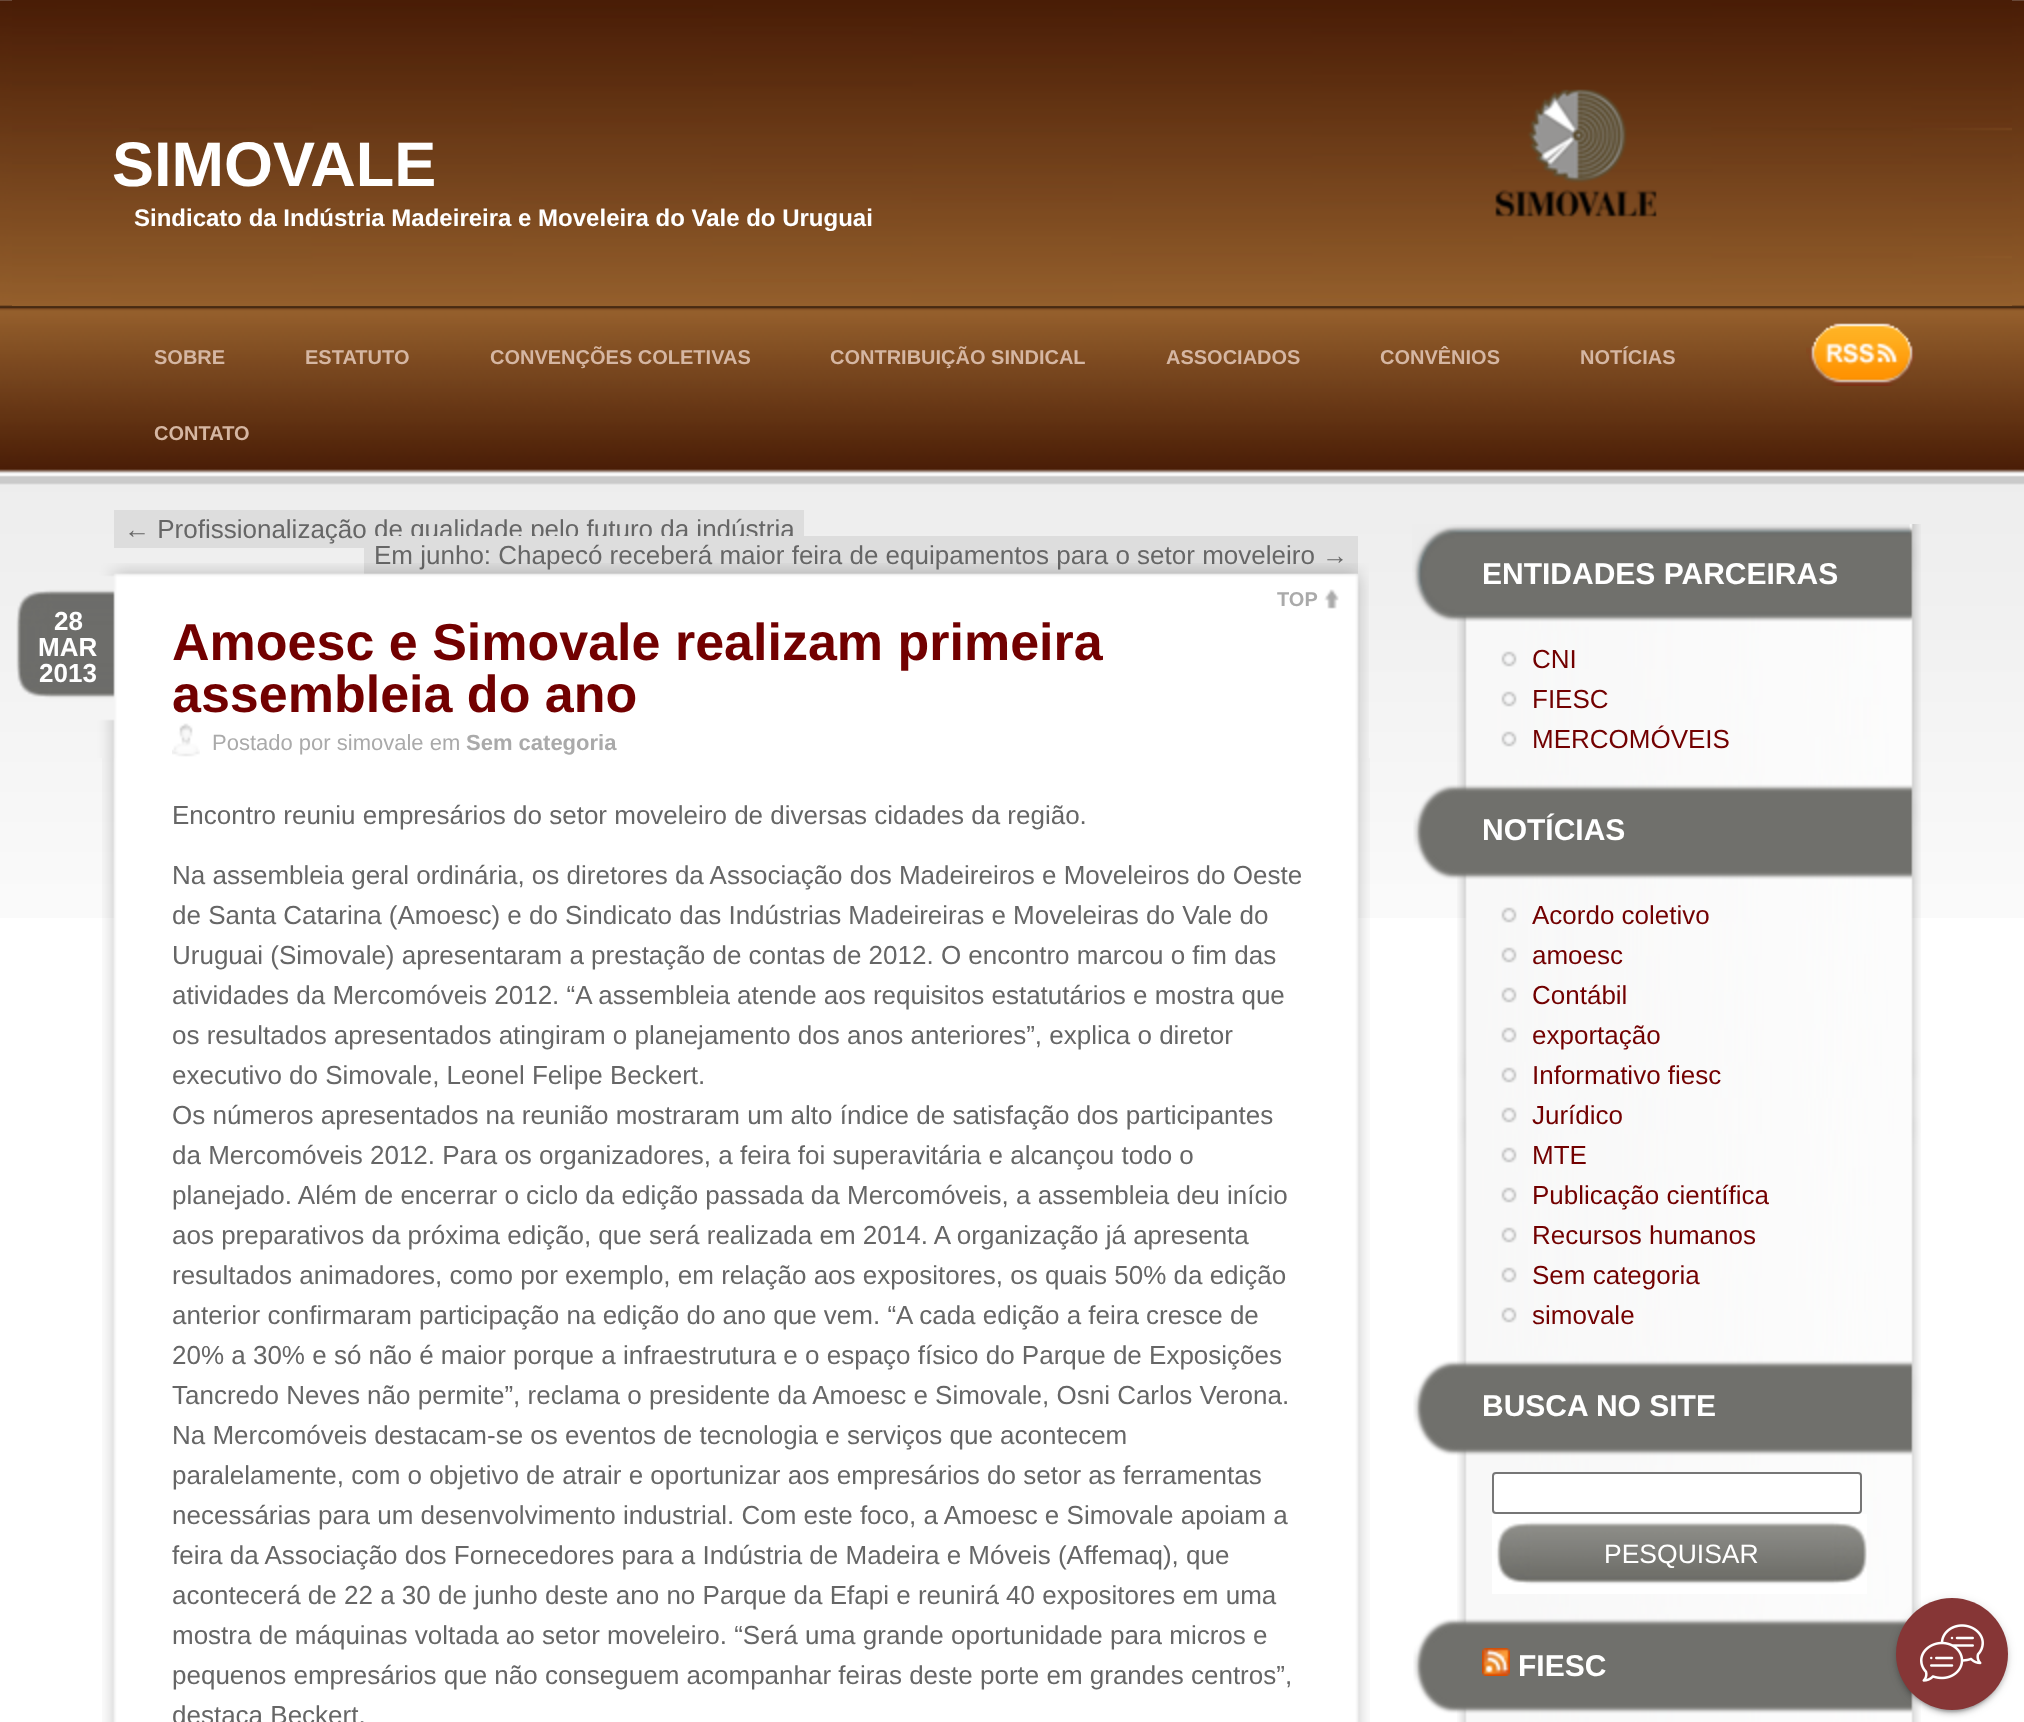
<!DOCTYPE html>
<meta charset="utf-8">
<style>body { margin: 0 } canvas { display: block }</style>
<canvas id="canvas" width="2024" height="1722"></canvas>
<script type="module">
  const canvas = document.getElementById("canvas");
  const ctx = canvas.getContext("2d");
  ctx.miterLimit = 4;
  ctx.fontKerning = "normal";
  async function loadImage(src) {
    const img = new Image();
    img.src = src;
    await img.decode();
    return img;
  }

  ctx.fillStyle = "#ffffff";
  ctx.fillRect(0, 0, 2024, 1722);
  ctx.drawImage(await loadImage("img1.png"), 0, 0, 2024, 918);
  ctx.drawImage(await loadImage("img2.png"), 12, 0, 2000, 306);
  ctx.font = "bold 63px Liberation Sans";
  ctx.fillText("SIMOVALE", 112, 186);
  ctx.font = "bold 24px Liberation Sans";
  ctx.fillText("Sindicato da Indústria Madeireira e Moveleira do Vale do Uruguai", 134, 226);
  ctx.font = "bold 20px Liberation Sans";
  ctx.fillStyle = "#d5b6a2";
  ctx.fillText("SOBRE", 154, 364);
  ctx.fillText("ESTATUTO", 305, 364);
  ctx.fillText("CONVENÇÕES COLETIVAS", 490, 364);
  ctx.fillText("CONTRIBUIÇÃO SINDICAL", 830, 364);
  ctx.fillText("ASSOCIADOS", 1166, 364);
  ctx.fillText("CONVÊNIOS", 1380, 364);
  ctx.fillText("NOTÍCIAS", 1580, 364);
  ctx.fillText("CONTATO", 154, 440);
  ctx.drawImage(await loadImage("img3.png"), 1806, 323, 109, 63);
  ctx.fillStyle = "#dddddd";
  ctx.fillRect(114, 510, 690, 38);
  ctx.font = "26px Liberation Sans";
  ctx.fillStyle = "#666666";
  ctx.fillText("← Profissionalização de qualidade pelo futuro da indústria", 124, 538);
  ctx.fillStyle = "#dddddd";
  ctx.fillRect(364, 536, 994, 38);
  ctx.fillStyle = "#666666";
  ctx.fillText("Em junho: Chapecó receberá maior feira de equipamentos para o setor moveleiro →", 374, 564);
  ctx.drawImage(await loadImage("img4.png"), 16, 563, 1353, 195);
  ctx.drawImage(await loadImage("img5.png"), 1324, 589, 15, 20);
  ctx.font = "bold 20px Liberation Sans";
  ctx.fillStyle = "#aaaaaa";
  ctx.fillText("TOP", 1277, 606);
  ctx.font = "bold 26px Liberation Sans";
  ctx.fillStyle = "#ffffff";
  ctx.fillText("28", 54, 630);
  ctx.fillText("MAR", 38, 656);
  ctx.fillText("2013", 39, 682);
  ctx.font = "bold 52px Liberation Sans";
  ctx.fillStyle = "#720000";
  ctx.fillText("Amoesc e Simovale realizam primeira", 172, 660);
  ctx.fillText("assembleia do ano", 172, 712);
  ctx.drawImage(await loadImage("img6.png"), 172, 723, 28, 34);
  ctx.font = "22px Liberation Sans";
  ctx.fillStyle = "#aaaaaa";
  ctx.fillText("Postado por simovale em", 212, 750);
  ctx.font = "bold 22px Liberation Sans";
  ctx.fillText("Sem categoria", 466, 750);
  ctx.drawImage(await loadImage("img7.png"), 102, 758, 1268, 964);
  ctx.font = "26px Liberation Sans";
  ctx.fillStyle = "#666666";
  ctx.fillText("Encontro reuniu empresários do setor moveleiro de diversas cidades da região.", 172, 824);
  ctx.fillText("Na assembleia geral ordinária, os diretores da Associação dos Madeireiros e Moveleiros do Oeste", 172, 884);
  ctx.fillText("de Santa Catarina (Amoesc) e do Sindicato das Indústrias Madeireiras e Moveleiras do Vale do", 172, 924);
  ctx.fillText("Uruguai (Simovale) apresentaram a prestação de contas de 2012. O encontro marcou o fim das", 172, 964);
  ctx.fillText("atividades da Mercomóveis 2012. “A assembleia atende aos requisitos estatutários e mostra que", 172, 1004);
  ctx.fillText("os resultados apresentados atingiram o planejamento dos anos anteriores”, explica o diretor", 172, 1044);
  ctx.fillText("executivo do Simovale, Leonel Felipe Beckert.", 172, 1084);
  ctx.fillText("Os números apresentados na reunião mostraram um alto índice de satisfação dos participantes", 172, 1124);
  ctx.fillText("da Mercomóveis 2012. Para os organizadores, a feira foi superavitária e alcançou todo o", 172, 1164);
  ctx.fillText("planejado. Além de encerrar o ciclo da edição passada da Mercomóveis, a assembleia deu início", 172, 1204);
  ctx.fillText("aos preparativos da próxima edição, que será realizada em 2014. A organização já apresenta", 172, 1244);
  ctx.fillText("resultados animadores, como por exemplo, em relação aos expositores, os quais 50% da edição", 172, 1284);
  ctx.fillText("anterior confirmaram participação na edição do ano que vem. “A cada edição a feira cresce de", 172, 1324);
  ctx.fillText("20% a 30% e só não é maior porque a infraestrutura e o espaço físico do Parque de Exposições", 172, 1364);
  ctx.fillText("Tancredo Neves não permite”, reclama o presidente da Amoesc e Simovale, Osni Carlos Verona.", 172, 1404);
  ctx.fillText("Na Mercomóveis destacam-se os eventos de tecnologia e serviços que acontecem", 172, 1444);
  ctx.fillText("paralelamente, com o objetivo de atrair e oportunizar aos empresários do setor as ferramentas", 172, 1484);
  ctx.fillText("necessárias para um desenvolvimento industrial. Com este foco, a Amoesc e Simovale apoiam a", 172, 1524);
  ctx.fillText("feira da Associação dos Fornecedores para a Indústria de Madeira e Móveis (Affemaq), que", 172, 1564);
  ctx.fillText("acontecerá de 22 a 30 de junho deste ano no Parque da Efapi e reunirá 40 expositores em uma", 172, 1604);
  ctx.fillText("mostra de máquinas voltada ao setor moveleiro. “Será uma grande oportunidade para micros e", 172, 1644);
  ctx.fillText("pequenos empresários que não conseguem acompanhar feiras deste porte em grandes centros”,", 172, 1684);
  ctx.fillText("destaca Beckert.", 172, 1724);
  ctx.drawImage(await loadImage("img8.png"), 1457, 524, 464, 256);
  ctx.drawImage(await loadImage("img9.png"), 1412, 524, 501, 98);
  ctx.font = "bold 30px Liberation Sans";
  ctx.fillStyle = "#ffffff";
  ctx.fillText("ENTIDADES PARCEIRAS", 1482, 584);
  ctx.drawImage(await loadImage("img10.png"), 1501, 651, 16, 16);
  ctx.font = "26px Liberation Sans";
  ctx.fillStyle = "#720000";
  ctx.fillText("CNI", 1532, 668);
  ctx.drawImage(await loadImage("img10.png"), 1501, 691, 16, 16);
  ctx.fillText("FIESC", 1532, 708);
  ctx.drawImage(await loadImage("img10.png"), 1501, 731, 16, 16);
  ctx.fillText("MERCOMÓVEIS", 1532, 748);
  ctx.drawImage(await loadImage("img11.png"), 1457, 780, 464, 576);
  ctx.drawImage(await loadImage("img12.png"), 1413, 784, 500, 96);
  ctx.font = "bold 30px Liberation Sans";
  ctx.fillStyle = "#ffffff";
  ctx.fillText("NOTÍCIAS", 1482, 840);
  ctx.drawImage(await loadImage("img10.png"), 1501, 907, 16, 16);
  ctx.font = "26px Liberation Sans";
  ctx.fillStyle = "#720000";
  ctx.fillText("Acordo coletivo", 1532, 924);
  ctx.drawImage(await loadImage("img10.png"), 1501, 947, 16, 16);
  ctx.fillText("amoesc", 1532, 964);
  ctx.drawImage(await loadImage("img10.png"), 1501, 987, 16, 16);
  ctx.fillText("Contábil", 1532, 1004);
  ctx.drawImage(await loadImage("img10.png"), 1501, 1027, 16, 16);
  ctx.fillText("exportação", 1532, 1044);
  ctx.drawImage(await loadImage("img10.png"), 1501, 1067, 16, 16);
  ctx.fillText("Informativo fiesc", 1532, 1084);
  ctx.drawImage(await loadImage("img10.png"), 1501, 1107, 16, 16);
  ctx.fillText("Jurídico", 1532, 1124);
  ctx.drawImage(await loadImage("img10.png"), 1501, 1147, 16, 16);
  ctx.fillText("MTE", 1532, 1164);
  ctx.drawImage(await loadImage("img10.png"), 1501, 1187, 16, 16);
  ctx.fillText("Publicação científica", 1532, 1204);
  ctx.drawImage(await loadImage("img10.png"), 1501, 1227, 16, 16);
  ctx.fillText("Recursos humanos", 1532, 1244);
  ctx.drawImage(await loadImage("img10.png"), 1501, 1267, 16, 16);
  ctx.fillText("Sem categoria", 1532, 1284);
  ctx.drawImage(await loadImage("img10.png"), 1501, 1307, 16, 16);
  ctx.fillText("simovale", 1532, 1324);
  ctx.drawImage(await loadImage("img13.png"), 1457, 1356, 464, 258);
  ctx.drawImage(await loadImage("img14.png"), 1413, 1360, 500, 96);
  ctx.font = "bold 30px Liberation Sans";
  ctx.fillStyle = "#ffffff";
  ctx.fillText("BUSCA NO SITE", 1482, 1416);
  ctx.beginPath();
  ctx.roundRect(1493, 1473, 368, 40, 3);
  ctx.fill();
  ctx.strokeStyle = "#767676";
  ctx.lineWidth = 2;
  ctx.stroke();
  ctx.drawImage(await loadImage("img15.png"), 1492, 1514, 375, 80);
  ctx.font = "26.5px Liberation Sans";
  ctx.fillText("PESQUISAR", 1604, 1563);
  ctx.drawImage(await loadImage("img16.png"), 1457, 1614, 464, 108);
  ctx.drawImage(await loadImage("img14.png"), 1413, 1618, 500, 96);
  ctx.drawImage(await loadImage("img17.png"), 1482, 1648, 28, 28);
  ctx.font = "bold 30px Liberation Sans";
  ctx.fillText("FIESC", 1518, 1676);
  ctx.fillStyle = "rgba(0, 0, 0, 0.2)";
  ctx.filter = "blur(1px)";
  ctx.beginPath();
  ctx.roundRect(1900, 1608, 104, 104, 52);
  ctx.fill();
  ctx.filter = "none";
  ctx.fillStyle = "rgba(0, 0, 0, 0.12)";
  ctx.filter = "blur(5px)";
  ctx.beginPath();
  ctx.roundRect(1896, 1600, 112, 112, 56);
  ctx.fill();
  ctx.filter = "none";
  ctx.fillStyle = "rgba(0, 0, 0, 0.14)";
  ctx.filter = "blur(2px)";
  ctx.beginPath();
  ctx.roundRect(1896, 1602, 112, 112, 56);
  ctx.fill();
  ctx.filter = "none";
  ctx.fillStyle = "#863636";
  ctx.beginPath();
  ctx.arc(1952, 1654, 56, 0, Math.PI * 2);
  ctx.fill();
  ctx.drawImage(await loadImage("img18.png"), 1920, 1624, 64, 58);
</script>
